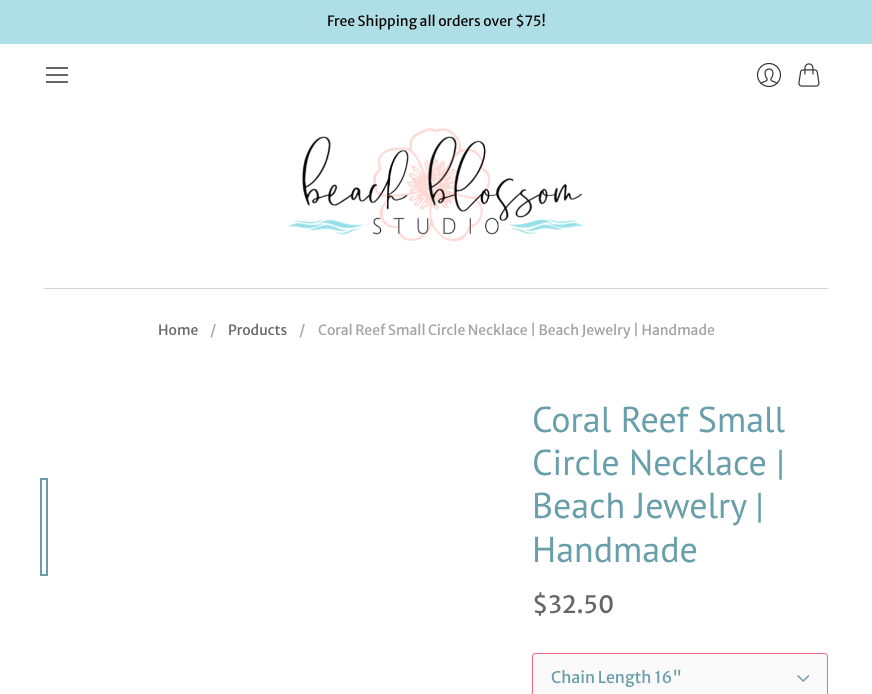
<!DOCTYPE html>
<meta charset="utf-8">
<style>body { margin: 0 } canvas { display: block }</style>
<canvas id="canvas" width="872" height="694"></canvas>
<script type="module">
  const canvas = document.getElementById("canvas");
  const ctx = canvas.getContext("2d");
  ctx.miterLimit = 4;
  ctx.fontKerning = "normal";
  async function loadImage(src) {
    const img = new Image();
    img.src = src;
    await img.decode();
    return img;
  }

  ctx.fillStyle = "#ffffff";
  ctx.fillRect(0, 0, 872, 694);
  ctx.fillStyle = "#aedfe6";
  ctx.fillRect(0, 0, 872, 44);
  ctx.font = "14px Merriweather Sans";
  ctx.fillStyle = "#0a0101";
  ctx.fillText("Free Shipping all orders over $75!", 327, 26);
  ctx.fillStyle = "#666666";
  ctx.fillRect(46, 67, 22, 2);
  ctx.fillRect(46, 74, 22, 2);
  ctx.fillRect(46, 81, 22, 2);
  ctx.drawImage(await loadImage("img1.png"), 756, 62, 26, 26);
  ctx.drawImage(await loadImage("img2.png"), 798, 63, 22, 24);
  ctx.fillStyle = "#d2d2d2";
  ctx.fillRect(44, 288, 784, 1);
  ctx.drawImage(await loadImage("img3.png"), 288, 128, 295, 114);
  ctx.fillStyle = "#666666";
  ctx.fillText("Home", 158, 335);
  ctx.fillStyle = "#a3a3a3";
  ctx.fillText("/", 210, 335);
  ctx.fillStyle = "#666666";
  ctx.fillText("Products", 228, 335);
  ctx.fillStyle = "#a3a3a3";
  ctx.fillText("/", 299, 335);
  ctx.fillText("Coral Reef Small Circle Necklace | Beach Jewelry | Handmade", 318, 335);
  ctx.fillStyle = "#699faa";
  ctx.fillRect(40, 478, 8, 98);
  ctx.fillStyle = "#ffffff";
  ctx.fillRect(42, 480, 4, 94);
  ctx.font = "36px PT Sans";
  ctx.fillStyle = "#699faa";
  ctx.fillText("Coral Reef Small", 532, 432);
  ctx.fillText("Circle Necklace |", 532, 475);
  ctx.fillText("Beach Jewelry |", 532, 518);
  ctx.fillText("Handmade", 532, 562);
  ctx.font = "24px Merriweather Sans";
  ctx.fillStyle = "#666666";
  ctx.fillText("$32.50", 532, 613);
  ctx.fillStyle = "#fafafa";
  ctx.beginPath();
  ctx.roundRect(533, 654, 294, 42, 2);
  ctx.fill();
  ctx.beginPath();
  ctx.roundRect(532.5, 653.5, 295, 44, 2.5);
  ctx.strokeStyle = "#ed6a82";
  ctx.stroke();
  ctx.font = "16px Merriweather Sans";
  ctx.fillStyle = "#699faa";
  ctx.fillText("Chain Length 16\"", 551, 683);
  ctx.drawImage(await loadImage("img4.png"), 797, 675, 13, 7);
</script>
